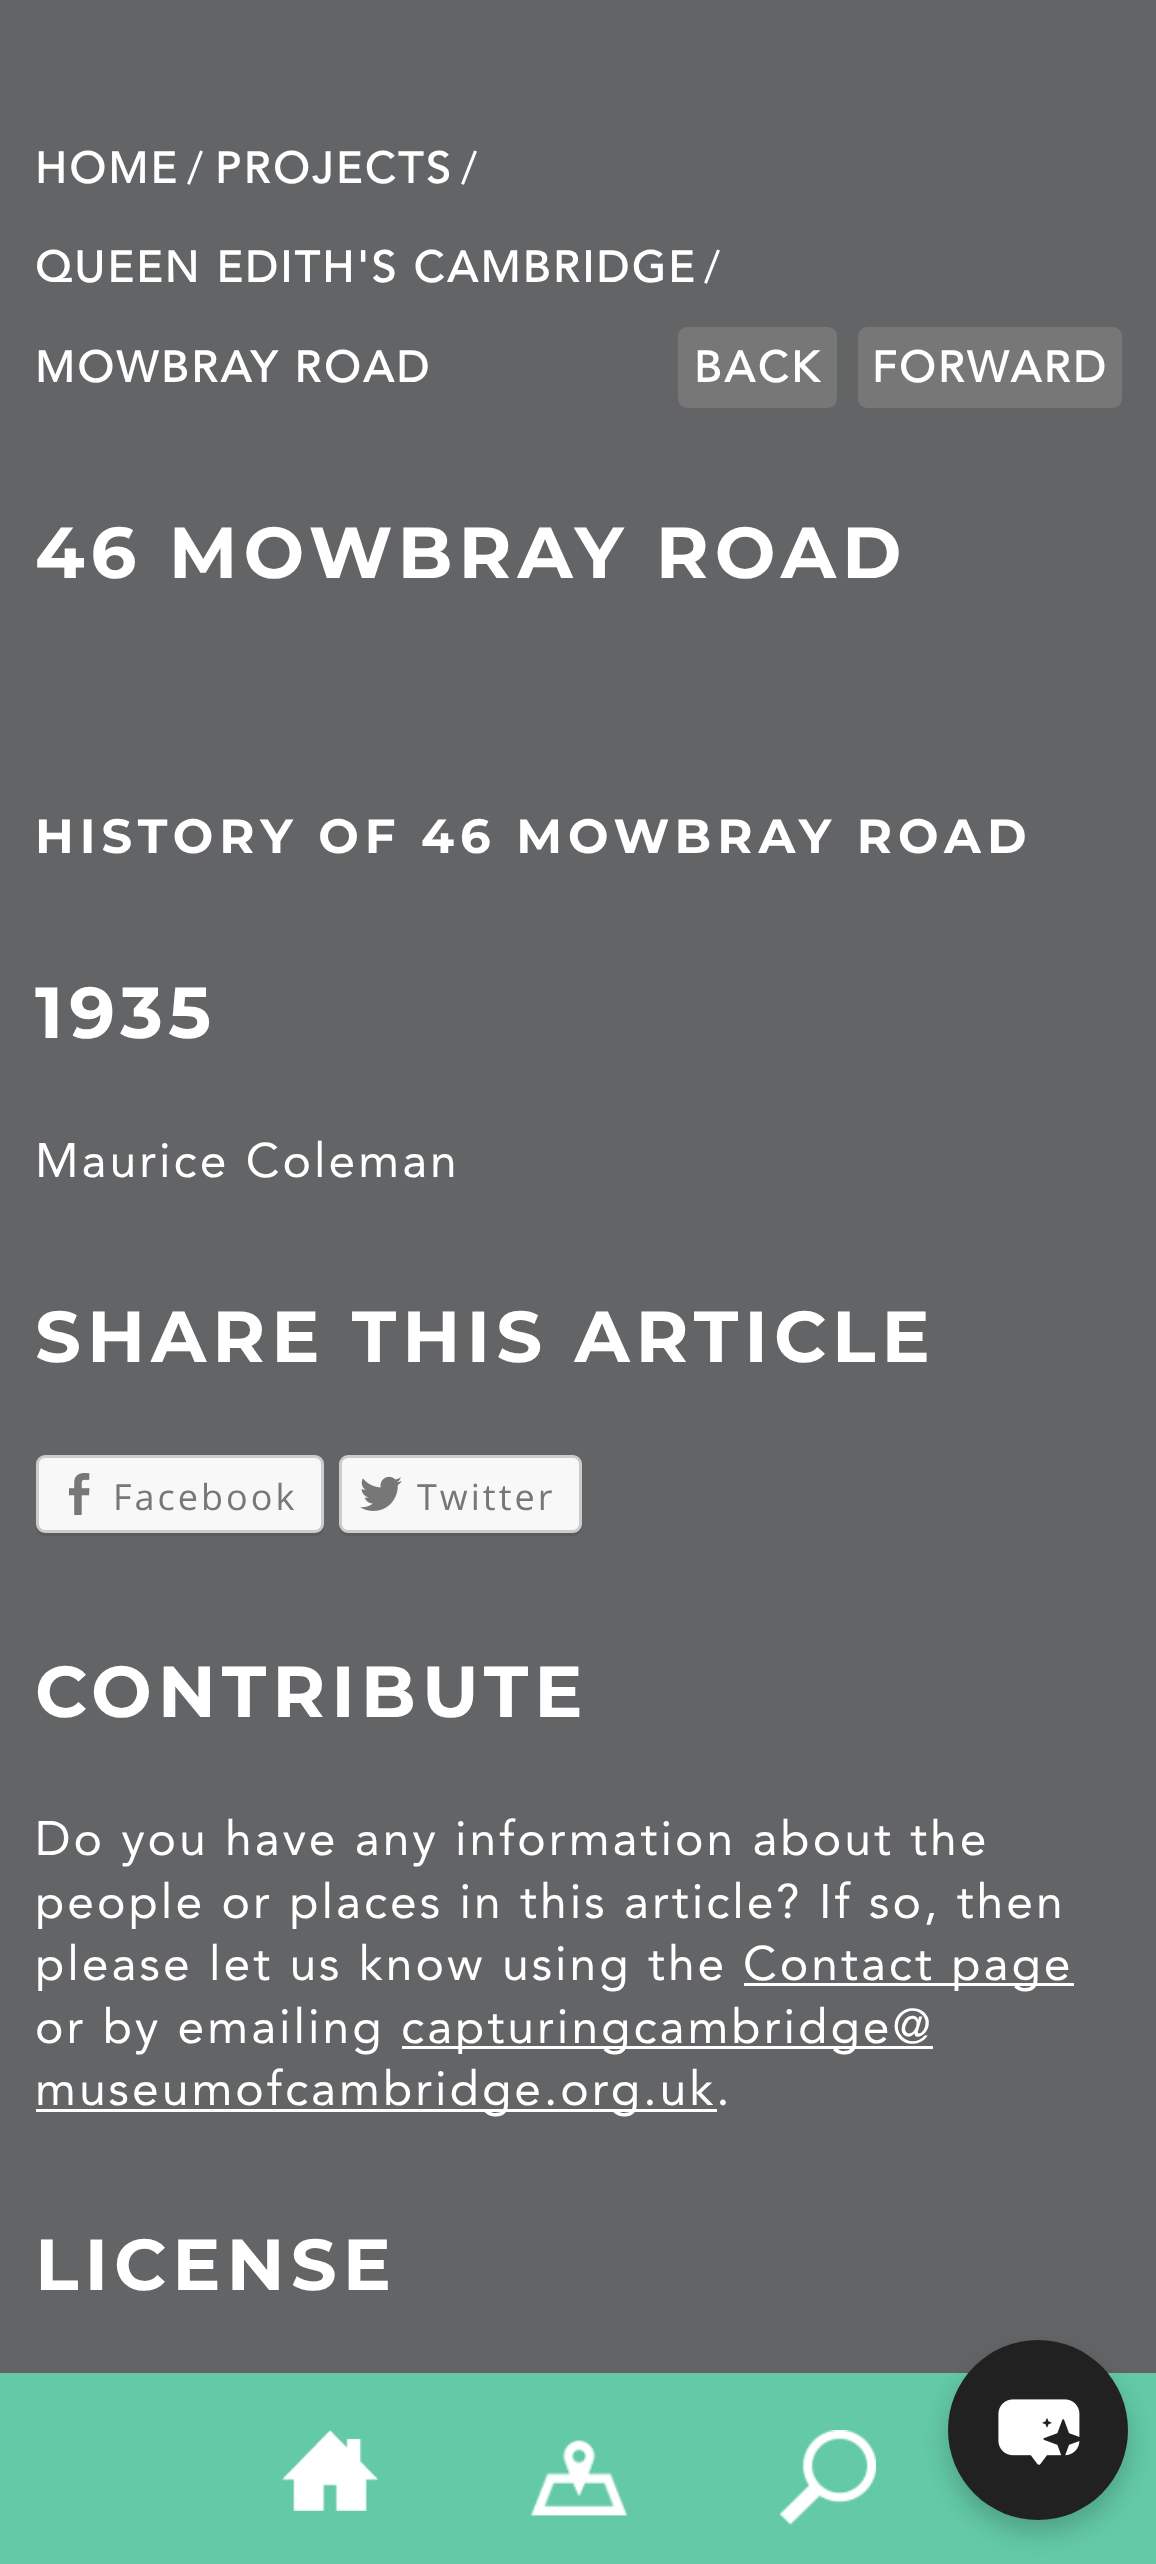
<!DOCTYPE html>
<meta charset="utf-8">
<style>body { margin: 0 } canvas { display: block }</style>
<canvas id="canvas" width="1156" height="2564"></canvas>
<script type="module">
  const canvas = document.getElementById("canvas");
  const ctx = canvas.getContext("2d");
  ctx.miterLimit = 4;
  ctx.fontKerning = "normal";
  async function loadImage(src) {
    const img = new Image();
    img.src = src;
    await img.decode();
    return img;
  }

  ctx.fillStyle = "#636466";
  ctx.fillRect(0, 0, 1156, 2564);
  ctx.letterSpacing = "3px";
  ctx.font = "bold 43.25px Avenir";
  ctx.fillStyle = "#ffffff";
  ctx.fillText("HOME", 35, 183);
  ctx.font = "43.25px Avenir";
  ctx.fillText("/", 187, 183);
  ctx.font = "bold 43.25px Avenir";
  ctx.fillText("PROJECTS", 215, 183);
  ctx.font = "43.25px Avenir";
  ctx.fillText("/", 461, 183);
  ctx.font = "bold 43.25px Avenir";
  ctx.fillText("QUEEN EDITH'S CAMBRIDGE", 35, 282);
  ctx.font = "43.25px Avenir";
  ctx.fillText("/", 704, 282);
  ctx.font = "bold 43.25px Avenir";
  ctx.fillText("MOWBRAY ROAD", 35, 382);
  ctx.fillStyle = "#777777";
  ctx.beginPath();
  ctx.roundRect(678, 327, 159, 81, 9);
  ctx.fill();
  ctx.fillStyle = "#ffffff";
  ctx.fillText("BACK", 694, 382);
  ctx.fillStyle = "#777777";
  ctx.beginPath();
  ctx.roundRect(858, 327, 264, 81, 9);
  ctx.fill();
  ctx.fillStyle = "#ffffff";
  ctx.fillText("FORWARD", 872, 382);
  ctx.letterSpacing = "6px";
  ctx.font = "bold 72px Montserrat";
  ctx.fillText("46 MOWBRAY ROAD", 35, 578);
  ctx.font = "bold 48px Montserrat";
  ctx.fillText("HISTORY OF 46 MOWBRAY ROAD", 35, 853);
  ctx.font = "bold 72px Montserrat";
  ctx.fillText("1935", 35, 1038);
  ctx.letterSpacing = "3px";
  ctx.font = "48px Avenir";
  ctx.fillText("Maurice Coleman", 35, 1177);
  ctx.letterSpacing = "6px";
  ctx.font = "bold 72px Montserrat";
  ctx.fillText("SHARE THIS ARTICLE", 35, 1362);
  ctx.fillStyle = "#5b5c5e";
  ctx.beginPath();
  ctx.moveTo(36, 1524);
  ctx.lineTo(36, 1527);
  ctx.bezierCurveTo(36, 1532, 40, 1536, 45, 1536);
  ctx.lineTo(315, 1536);
  ctx.bezierCurveTo(320, 1536, 324, 1532, 324, 1527);
  ctx.lineTo(324, 1524);
  ctx.bezierCurveTo(324, 1529, 320, 1533, 315, 1533);
  ctx.lineTo(45, 1533);
  ctx.bezierCurveTo(40, 1533, 36, 1529, 36, 1524);
  ctx.closePath();
  ctx.fill();
  ctx.fillStyle = "#f8f8f8";
  ctx.beginPath();
  ctx.roundRect(37.5, 1456.5, 285, 75, 7.5);
  ctx.fill();
  ctx.strokeStyle = "#cccccc";
  ctx.lineWidth = 3;
  ctx.stroke();
  ctx.drawImage(await loadImage("img1.png"), 69, 1473, 21, 42);
  ctx.letterSpacing = "3px";
  ctx.font = "36px Open Sans";
  ctx.fillStyle = "#777777";
  ctx.fillText("Facebook", 113, 1510);
  ctx.fillStyle = "#5b5c5e";
  ctx.beginPath();
  ctx.moveTo(339, 1524);
  ctx.lineTo(339, 1527);
  ctx.bezierCurveTo(339, 1532, 343, 1536, 348, 1536);
  ctx.lineTo(573, 1536);
  ctx.bezierCurveTo(578, 1536, 582, 1532, 582, 1527);
  ctx.lineTo(582, 1524);
  ctx.bezierCurveTo(582, 1529, 578, 1533, 573, 1533);
  ctx.lineTo(348, 1533);
  ctx.bezierCurveTo(343, 1533, 339, 1529, 339, 1524);
  ctx.closePath();
  ctx.fill();
  ctx.fillStyle = "#f8f8f8";
  ctx.beginPath();
  ctx.roundRect(340.5, 1456.5, 240, 75, 7.5);
  ctx.fill();
  ctx.stroke();
  ctx.drawImage(await loadImage("img2.png"), 360, 1476, 42, 35);
  ctx.fillStyle = "#777777";
  ctx.fillText("Twitter", 417, 1510);
  ctx.letterSpacing = "6px";
  ctx.font = "bold 72px Montserrat";
  ctx.fillStyle = "#ffffff";
  ctx.fillText("CONTRIBUTE", 35, 1717);
  ctx.letterSpacing = "3px";
  ctx.font = "48px Avenir";
  ctx.fillText("Do you have any information about the", 35, 1855);
  ctx.fillText("people or places in this article? If so, then", 35, 1918);
  ctx.fillText("please let us know using the", 35, 1980);
  ctx.fillRect(744, 1983, 330, 3);
  ctx.fillText("Contact page", 743, 1980);
  ctx.fillText("or by emailing", 35, 2043);
  ctx.fillRect(402, 2046, 531, 3);
  ctx.fillText("capturingcambridge@", 401, 2043);
  ctx.fillRect(36, 2109, 681, 3);
  ctx.fillText("museumofcambridge.org.uk.", 35, 2105);
  ctx.letterSpacing = "6px";
  ctx.font = "bold 72px Montserrat";
  ctx.fillText("LICENSE", 35, 2290);
  ctx.fillStyle = "#63c9a6";
  ctx.fillRect(0, 2373, 1156, 191);
  ctx.drawImage(await loadImage("img3.png"), 282, 2430, 96, 81);
  ctx.drawImage(await loadImage("img4.png"), 531, 2440, 96, 76);
  ctx.drawImage(await loadImage("img5.png"), 780, 2430, 96, 95);
  ctx.fillStyle = "rgba(0, 0, 0, 0.2)";
  ctx.filter = "blur(12px)";
  ctx.beginPath();
  ctx.roundRect(948, 2352, 180, 180, 90);
  ctx.fill();
  ctx.filter = "none";
  ctx.fillStyle = "#212121";
  ctx.beginPath();
  ctx.arc(1038, 2430, 90, 0, Math.PI * 2);
  ctx.fill();
  ctx.drawImage(await loadImage("img6.png"), 998, 2399, 82, 66);
</script>
